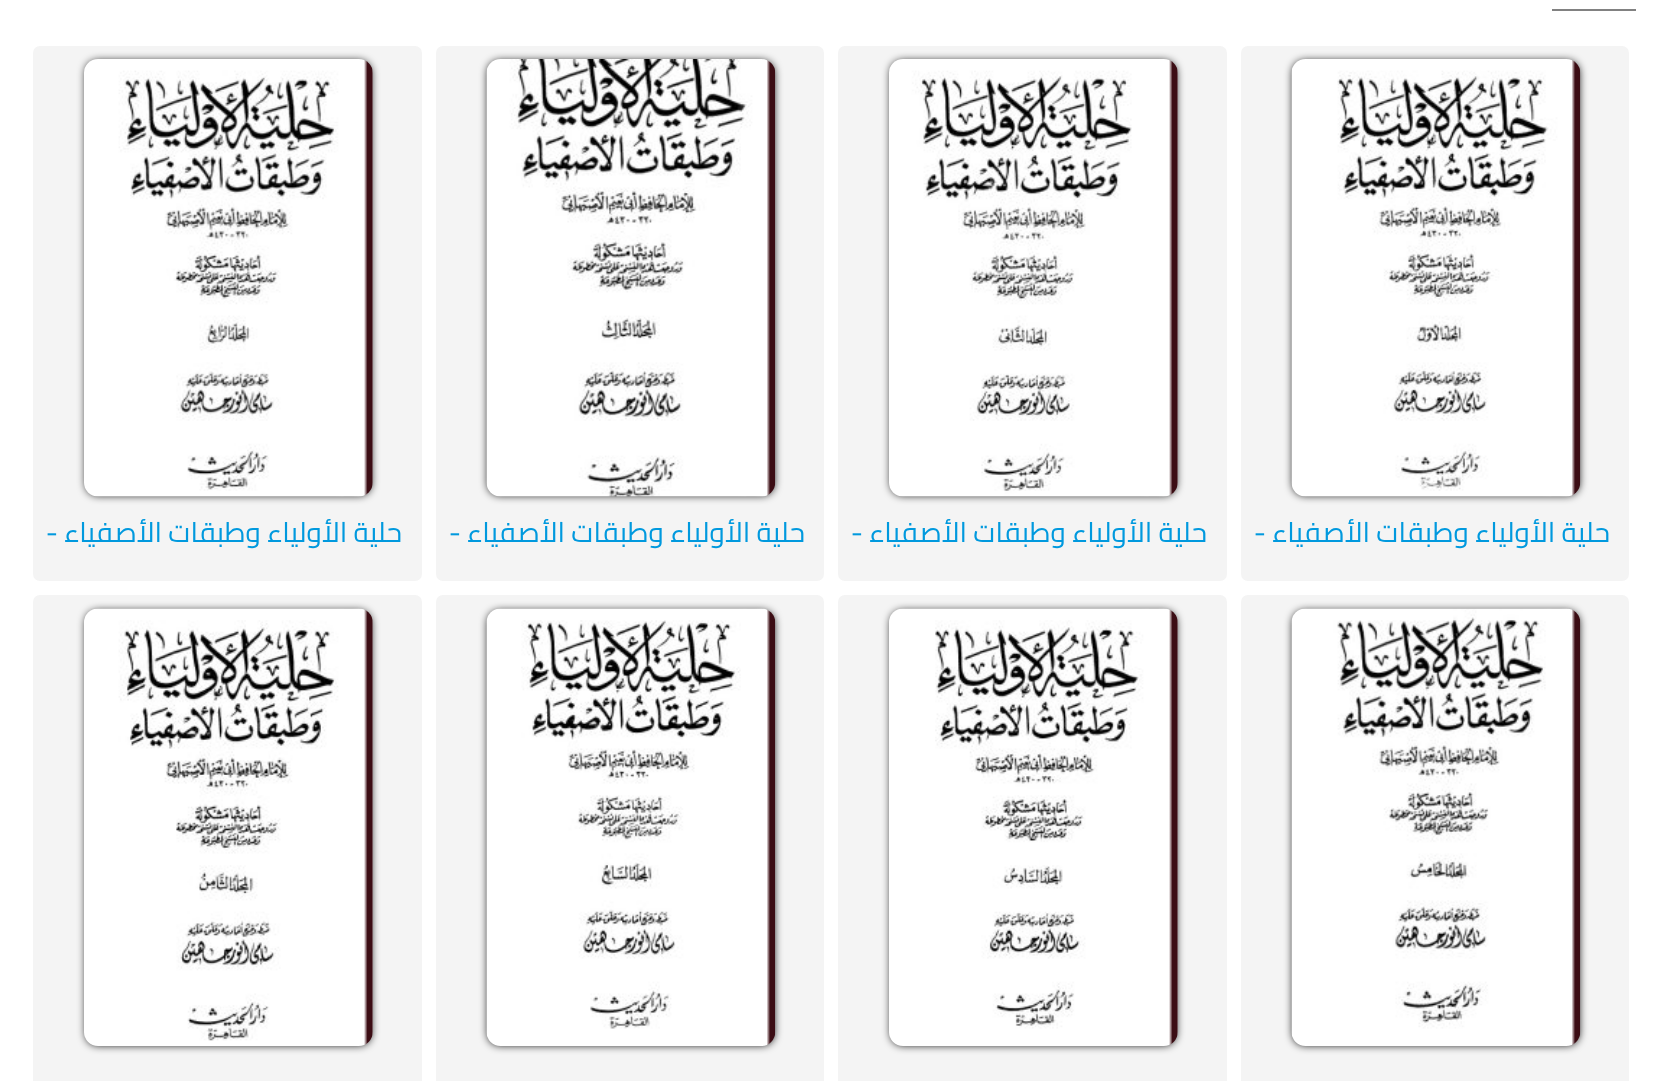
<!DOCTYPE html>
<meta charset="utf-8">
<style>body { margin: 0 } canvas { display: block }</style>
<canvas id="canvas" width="1661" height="1081"></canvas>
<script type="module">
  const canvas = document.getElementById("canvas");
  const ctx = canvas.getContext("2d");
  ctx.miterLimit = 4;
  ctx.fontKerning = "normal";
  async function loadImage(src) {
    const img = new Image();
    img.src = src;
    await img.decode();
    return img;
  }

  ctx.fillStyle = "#ffffff";
  ctx.fillRect(0, 0, 1661, 1081);
  ctx.fillStyle = "#818181";
  ctx.fillRect(1552, 9, 84, 2);
  ctx.fillStyle = "#f4f4f4";
  ctx.beginPath();
  ctx.roundRect(1237.5, 42.5, 395, 542, 10.5);
  ctx.fill();
  ctx.strokeStyle = "#ffffff";
  ctx.lineWidth = 7;
  ctx.stroke();
  ctx.fillStyle = "#000000";
  ctx.filter = "blur(4.5px)";
  ctx.beginPath();
  ctx.roundRect(1293, 61, 286, 434, 12);
  ctx.fill();
  ctx.filter = "none";
  ctx.drawImage(await loadImage("img1.png"), 1291, 59, 290, 438);
  ctx.direction = "rtl";
  ctx.font = "28px Cairo";
  ctx.fillStyle = "#0099de";
  ctx.fillText("حلية الأولياء وطبقات الأصفياء -", 1610, 542);
  ctx.fillStyle = "#f4f4f4";
  ctx.beginPath();
  ctx.roundRect(834.5, 42.5, 396, 542, 10.5);
  ctx.fill();
  ctx.stroke();
  ctx.fillStyle = "#000000";
  ctx.filter = "blur(4.5px)";
  ctx.beginPath();
  ctx.roundRect(891, 61, 285, 434, 12);
  ctx.fill();
  ctx.filter = "none";
  ctx.drawImage(await loadImage("img2.png"), 889, 59, 289, 438);
  ctx.fillStyle = "#0099de";
  ctx.fillText("حلية الأولياء وطبقات الأصفياء -", 1207, 542);
  ctx.fillStyle = "#f4f4f4";
  ctx.beginPath();
  ctx.roundRect(432.5, 42.5, 395, 542, 10.5);
  ctx.fill();
  ctx.stroke();
  ctx.fillStyle = "#000000";
  ctx.filter = "blur(4.5px)";
  ctx.beginPath();
  ctx.roundRect(488, 61, 286, 434, 12);
  ctx.fill();
  ctx.filter = "none";
  ctx.drawImage(await loadImage("img3.png"), 486, 59, 290, 438);
  ctx.fillStyle = "#0099de";
  ctx.fillText("حلية الأولياء وطبقات الأصفياء -", 805, 542);
  ctx.fillStyle = "#f4f4f4";
  ctx.beginPath();
  ctx.roundRect(29.5, 42.5, 396, 542, 10.5);
  ctx.fill();
  ctx.stroke();
  ctx.fillStyle = "#000000";
  ctx.filter = "blur(4.5px)";
  ctx.beginPath();
  ctx.roundRect(86, 61, 285, 434, 12);
  ctx.fill();
  ctx.filter = "none";
  ctx.drawImage(await loadImage("img4.png"), 84, 59, 289, 438);
  ctx.fillStyle = "#0099de";
  ctx.fillText("حلية الأولياء وطبقات الأصفياء -", 402, 542);
  ctx.fillStyle = "#f4f4f4";
  ctx.beginPath();
  ctx.roundRect(1237.5, 591.5, 395, 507, 10.5);
  ctx.fill();
  ctx.stroke();
  ctx.fillStyle = "#000000";
  ctx.filter = "blur(4.5px)";
  ctx.beginPath();
  ctx.roundRect(1293, 611, 286, 434, 12);
  ctx.fill();
  ctx.filter = "none";
  ctx.drawImage(await loadImage("img5.png"), 1291, 608, 290, 438);
  ctx.fillStyle = "#f4f4f4";
  ctx.beginPath();
  ctx.roundRect(834.5, 591.5, 396, 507, 10.5);
  ctx.fill();
  ctx.stroke();
  ctx.fillStyle = "#000000";
  ctx.filter = "blur(4.5px)";
  ctx.beginPath();
  ctx.roundRect(891, 611, 285, 434, 12);
  ctx.fill();
  ctx.filter = "none";
  ctx.drawImage(await loadImage("img6.png"), 889, 608, 289, 438);
  ctx.fillStyle = "#f4f4f4";
  ctx.beginPath();
  ctx.roundRect(432.5, 591.5, 395, 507, 10.5);
  ctx.fill();
  ctx.stroke();
  ctx.fillStyle = "#000000";
  ctx.filter = "blur(4.5px)";
  ctx.beginPath();
  ctx.roundRect(488, 611, 286, 434, 12);
  ctx.fill();
  ctx.filter = "none";
  ctx.drawImage(await loadImage("img7.png"), 486, 608, 290, 438);
  ctx.fillStyle = "#f4f4f4";
  ctx.beginPath();
  ctx.roundRect(29.5, 591.5, 396, 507, 10.5);
  ctx.fill();
  ctx.stroke();
  ctx.fillStyle = "#000000";
  ctx.filter = "blur(4.5px)";
  ctx.beginPath();
  ctx.roundRect(86, 611, 285, 434, 12);
  ctx.fill();
  ctx.filter = "none";
  ctx.drawImage(await loadImage("img8.png"), 84, 608, 289, 438);
</script>
